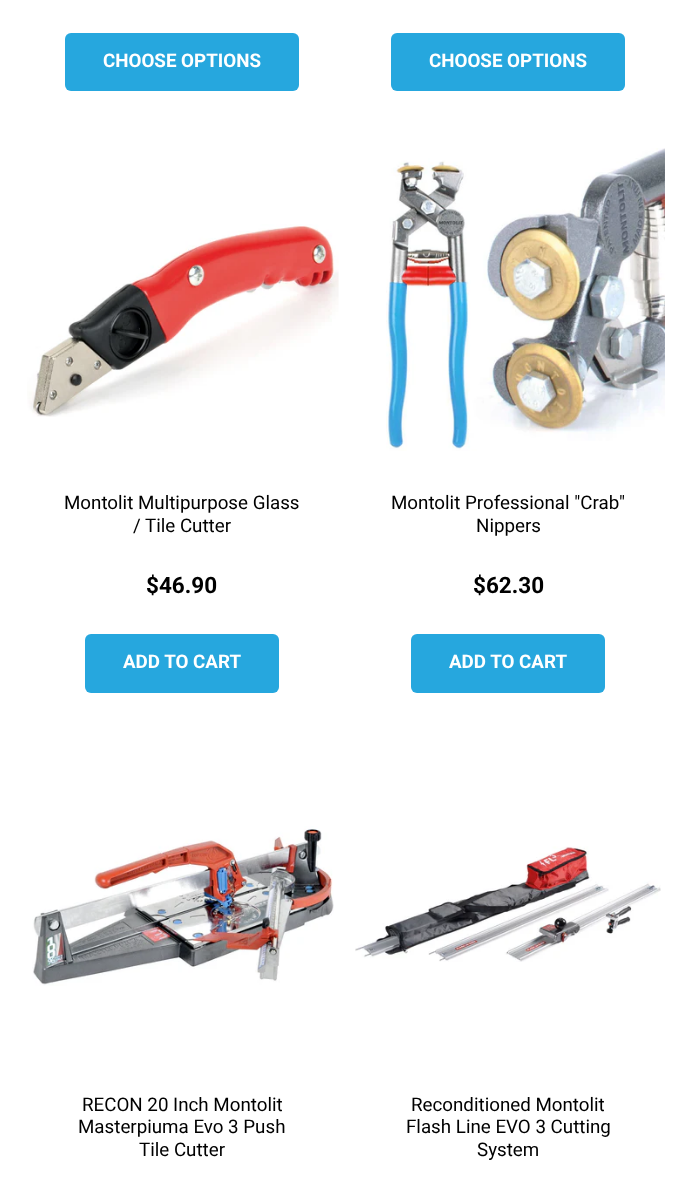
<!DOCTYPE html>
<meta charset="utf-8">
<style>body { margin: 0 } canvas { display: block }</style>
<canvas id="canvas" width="689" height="1204"></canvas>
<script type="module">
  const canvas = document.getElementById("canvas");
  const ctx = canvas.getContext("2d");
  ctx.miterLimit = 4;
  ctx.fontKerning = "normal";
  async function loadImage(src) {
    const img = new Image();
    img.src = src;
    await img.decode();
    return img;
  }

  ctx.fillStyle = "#ffffff";
  ctx.fillRect(0, 0, 689, 1204);
  ctx.fillStyle = "#26a7de";
  ctx.beginPath();
  ctx.roundRect(65, 33, 234, 58, 6);
  ctx.fill();
  ctx.font = "bold 18.75px Roboto";
  ctx.fillStyle = "#ffffff";
  ctx.fillText("CHOOSE OPTIONS", 103, 67);
  ctx.fillStyle = "#26a7de";
  ctx.beginPath();
  ctx.roundRect(391, 33, 234, 58, 6);
  ctx.fill();
  ctx.fillStyle = "#ffffff";
  ctx.fillText("CHOOSE OPTIONS", 429, 67);
  ctx.drawImage(await loadImage("img1.png"), 27, 224, 312, 193);
  ctx.font = "18.75px Roboto";
  ctx.fillStyle = "#000000";
  ctx.fillText("Montolit Multipurpose Glass", 64, 509);
  ctx.fillText("/ Tile Cutter", 133, 532);
  ctx.font = "bold 22.5px Roboto";
  ctx.fillText("$46.90", 146, 593);
  ctx.fillStyle = "#26a7de";
  ctx.beginPath();
  ctx.roundRect(85, 634, 194, 59, 6);
  ctx.fill();
  ctx.font = "bold 18.75px Roboto";
  ctx.fillStyle = "#ffffff";
  ctx.fillText("ADD TO CART", 123, 668);
  ctx.drawImage(await loadImage("img2.png"), 386, 148, 279, 303);
  ctx.font = "18.75px Roboto";
  ctx.fillStyle = "#000000";
  ctx.fillText("Montolit Professional \"Crab\"", 391, 509);
  ctx.fillText("Nippers", 476, 532);
  ctx.font = "bold 22.5px Roboto";
  ctx.fillText("$62.30", 473, 593);
  ctx.fillStyle = "#26a7de";
  ctx.beginPath();
  ctx.roundRect(411, 634, 194, 59, 6);
  ctx.fill();
  ctx.font = "bold 18.75px Roboto";
  ctx.fillStyle = "#ffffff";
  ctx.fillText("ADD TO CART", 449, 668);
  ctx.drawImage(await loadImage("img3.png"), 32, 826, 302, 160);
  ctx.font = "18.75px Roboto";
  ctx.fillStyle = "#000000";
  ctx.fillText("RECON 20 Inch Montolit", 82, 1111);
  ctx.fillText("Masterpiuma Evo 3 Push", 78, 1133);
  ctx.fillText("Tile Cutter", 139, 1156);
  ctx.drawImage(await loadImage("img4.png"), 355, 846, 306, 116);
  ctx.fillText("Reconditioned Montolit", 411, 1111);
  ctx.fillText("Flash Line EVO 3 Cutting", 406, 1133);
  ctx.fillText("System", 477, 1156);
</script>
